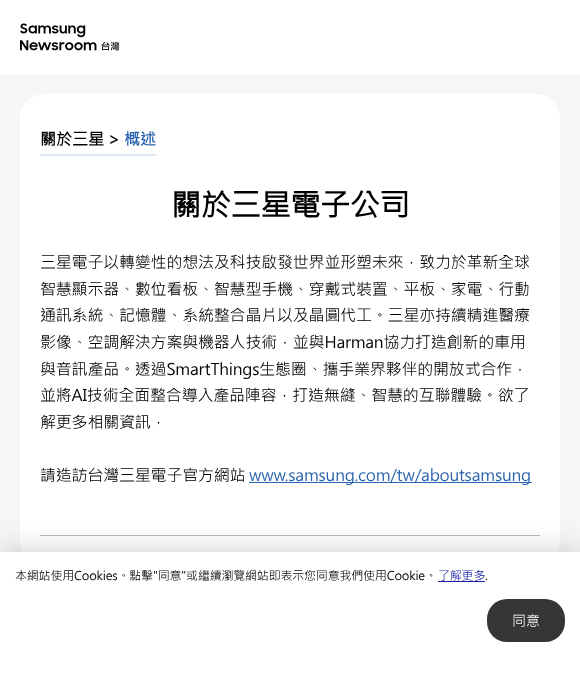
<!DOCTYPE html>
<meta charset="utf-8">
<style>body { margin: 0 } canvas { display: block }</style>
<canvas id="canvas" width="580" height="682"></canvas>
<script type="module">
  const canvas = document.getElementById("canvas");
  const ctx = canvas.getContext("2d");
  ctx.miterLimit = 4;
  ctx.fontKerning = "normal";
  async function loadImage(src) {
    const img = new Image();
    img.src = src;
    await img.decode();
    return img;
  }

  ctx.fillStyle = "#ffffff";
  ctx.fillRect(0, 0, 580, 682);
  ctx.fillStyle = "#f6f6f6";
  ctx.fillRect(0, 74, 580, 478);
  ctx.fillStyle = "#ffffff";
  ctx.beginPath();
  ctx.roundRect(20, 94, 540, 472, 24);
  ctx.fill();
  ctx.fillStyle = "#dae6f4";
  ctx.fillRect(40, 154, 116, 2);
  ctx.font = "bold 16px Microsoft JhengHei";
  ctx.fillStyle = "#000000";
  ctx.fillText("關於三星 >", 40, 145);
  ctx.fillStyle = "#2963ad";
  ctx.fillText("概述", 124, 145);
  ctx.letterSpacing = "-0.2px";
  ctx.font = "bold 30px Microsoft JhengHei";
  ctx.fillStyle = "#000000";
  ctx.fillText("關於三星電子公司", 171, 216);
  ctx.fillStyle = "#bcbcbc";
  ctx.fillRect(40, 535, 500, 1);
  ctx.font = "16px Microsoft JhengHei";
  ctx.fillStyle = "#000000";
  ctx.fillText("三星電子以轉變性的想法及科技啟發世界並形塑未來，致力於革新全球", 40, 268);
  ctx.fillText("智慧顯示器、數位看板、智慧型手機、穿戴式裝置、平板、家電、行動", 40, 295);
  ctx.fillText("通訊系統、記憶體、系統整合晶片以及晶圓代工。三星亦持續精進醫療", 40, 321);
  ctx.fillText("影像、空調解決方案與機器人技術，並與Harman協力打造創新的車用", 40, 348);
  ctx.fillText("與音訊產品。透過SmartThings生態圈、攜手業界夥伴的開放式合作，", 40, 375);
  ctx.fillText("並將AI技術全面整合導入產品陣容，打造無縫、智慧的互聯體驗。欲了", 40, 401);
  ctx.fillText("解更多相關資訊，", 40, 428);
  ctx.fillText("請造訪台灣三星電子官方網站", 40, 481);
  ctx.fillStyle = "#2963ad";
  ctx.fillRect(249, 482, 283, 1);
  ctx.fillText("www.samsung.com/tw/aboutsamsung", 249, 481);
  ctx.drawImage(await loadImage("img1.png"), 20, 23, 100, 28);
  ctx.fillStyle = "rgba(0, 0, 0, 0.2)";
  ctx.filter = "blur(15px)";
  ctx.beginPath();
  ctx.rect(0, 552, 580, 130);
  ctx.fill();
  ctx.filter = "none";
  ctx.fillStyle = "#ffffff";
  ctx.fillRect(0, 552, 580, 130);
  ctx.font = "12px Microsoft JhengHei";
  ctx.fillStyle = "#000000";
  ctx.fillText("本網站使用Cookies。點擊\"同意\"或繼續瀏覽網站即表示您同意我們使用Cookie。", 15, 580);
  ctx.fillStyle = "#1920a2";
  ctx.fillText("了解更多", 438, 580);
  ctx.fillRect(438, 581, 47, 1);
  ctx.fillStyle = "#000000";
  ctx.fillText(".", 485, 580);
  ctx.fillStyle = "#363636";
  ctx.beginPath();
  ctx.roundRect(487, 599, 78, 43, 20);
  ctx.fill();
  ctx.letterSpacing = "0px";
  ctx.font = "14px Microsoft JhengHei";
  ctx.fillStyle = "#ffffff";
  ctx.fillText("同意", 512, 626);
</script>
